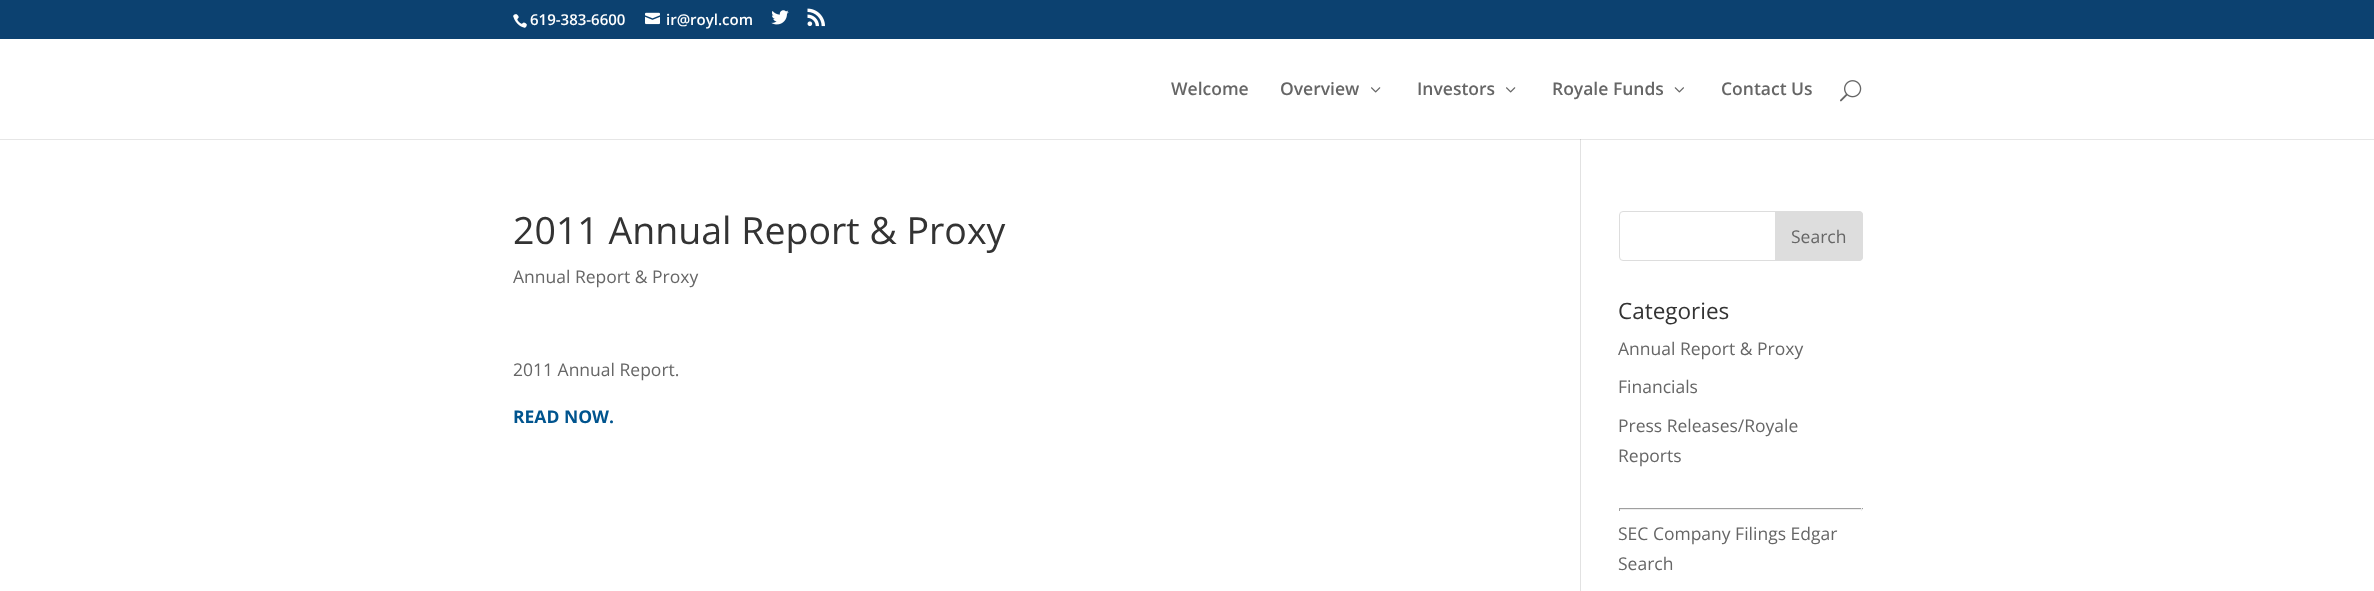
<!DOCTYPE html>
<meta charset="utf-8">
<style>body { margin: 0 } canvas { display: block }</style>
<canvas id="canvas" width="2374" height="591"></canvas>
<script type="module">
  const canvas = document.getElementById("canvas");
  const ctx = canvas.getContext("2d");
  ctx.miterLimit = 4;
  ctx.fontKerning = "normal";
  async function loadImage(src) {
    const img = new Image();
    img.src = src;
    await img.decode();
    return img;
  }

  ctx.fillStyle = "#0c4170";
  ctx.fillRect(0, 0, 2374, 591);
  ctx.drawImage(await loadImage("img1.png"), 513, 14, 14, 14);
  ctx.font = "600 15px Open Sans";
  ctx.fillStyle = "#ffffff";
  ctx.fillText("619-383-6600", 530, 25);
  ctx.drawImage(await loadImage("img2.png"), 645, 12, 15, 13);
  ctx.fillText("ir@royl.com", 666, 25);
  ctx.drawImage(await loadImage("img3.png"), 771, 10, 18, 15);
  ctx.drawImage(await loadImage("img4.png"), 807, 8, 18, 19);
  ctx.fillRect(0, 39, 2374, 100);
  ctx.font = "600 17.5px Open Sans";
  ctx.fillStyle = "#666666";
  ctx.fillText("Welcome", 1171, 95);
  ctx.fillText("Overview", 1280, 95);
  ctx.drawImage(await loadImage("img5.png"), 1371, 87, 10, 6);
  ctx.fillText("Investors", 1417, 95);
  ctx.drawImage(await loadImage("img5.png"), 1506, 87, 10, 6);
  ctx.fillText("Royale Funds", 1552, 95);
  ctx.drawImage(await loadImage("img6.png"), 1674, 87, 10, 6);
  ctx.fillText("Contact Us", 1721, 95);
  ctx.drawImage(await loadImage("img7.png"), 1840, 80, 22, 22);
  ctx.fillStyle = "#ffffff";
  ctx.fillRect(0, 140, 2374, 451);
  ctx.fillStyle = "#e6e6e6";
  ctx.fillRect(0, 139, 2374, 1);
  ctx.fillStyle = "#e2e2e2";
  ctx.fillRect(1580, 139, 1, 452);
  ctx.fillStyle = "#cbcbcb";
  ctx.fillRect(1580, 139, 1, 1);
  ctx.font = "37.5px Open Sans";
  ctx.fillStyle = "#333333";
  ctx.fillText("2011 Annual Report & Proxy", 513, 244);
  ctx.font = "17.5px Open Sans";
  ctx.fillStyle = "#666666";
  ctx.fillText("Annual Report & Proxy", 513, 283);
  ctx.fillText("2011 Annual Report.", 513, 376);
  ctx.font = "bold 17.5px Open Sans";
  ctx.fillStyle = "#00548e";
  ctx.fillText("READ NOW.", 513, 423);
  ctx.beginPath();
  ctx.roundRect(1619.5, 211.5, 243, 49, 3.5);
  ctx.strokeStyle = "#dddddd";
  ctx.stroke();
  ctx.fillStyle = "#dddddd";
  ctx.beginPath();
  ctx.roundRect(1775.5, 211.5, 87, 49, [0, 3.5, 3.5, 0]);
  ctx.fill();
  ctx.stroke();
  ctx.font = "17.5px Open Sans";
  ctx.fillStyle = "#666666";
  ctx.fillText("Search", 1791, 243);
  ctx.font = "22.5px Open Sans";
  ctx.fillStyle = "#333333";
  ctx.fillText("Categories", 1618, 319);
  ctx.font = "17.5px Open Sans";
  ctx.fillStyle = "#666666";
  ctx.fillText("Annual Report & Proxy", 1618, 355);
  ctx.fillText("Financials", 1618, 393);
  ctx.fillText("Press Releases/Royale", 1618, 432);
  ctx.fillText("Reports", 1618, 462);
  ctx.fillStyle = "#9f9f9f";
  ctx.fillRect(1619, 508, 244, 1);
  ctx.fillStyle = "#eeeeee";
  ctx.fillRect(1861, 508, 1, 3);
  ctx.fillRect(1619, 509, 244, 1);
  ctx.fillStyle = "#9f9f9f";
  ctx.fillRect(1619, 508, 1, 3);
  ctx.fillStyle = "#666666";
  ctx.fillText("SEC Company Filings Edgar", 1618, 540);
  ctx.fillText("Search", 1618, 570);
</script>
